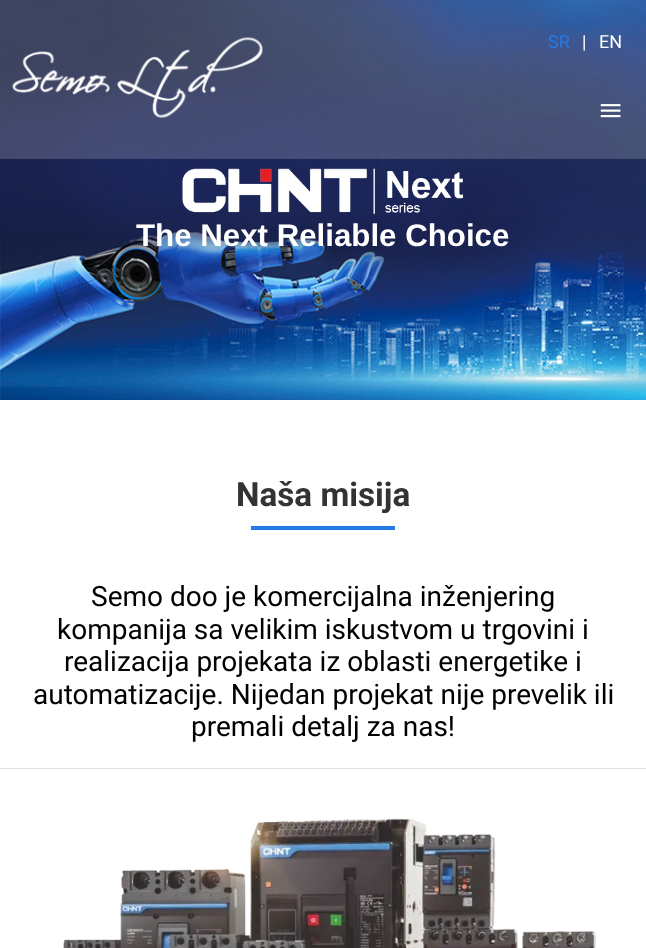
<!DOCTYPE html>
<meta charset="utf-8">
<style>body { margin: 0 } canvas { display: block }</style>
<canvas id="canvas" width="646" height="948"></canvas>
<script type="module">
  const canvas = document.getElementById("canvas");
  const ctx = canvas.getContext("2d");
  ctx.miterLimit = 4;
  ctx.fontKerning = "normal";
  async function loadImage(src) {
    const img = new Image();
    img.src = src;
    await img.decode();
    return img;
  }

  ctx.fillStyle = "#ffffff";
  ctx.fillRect(0, 0, 646, 948);
  ctx.drawImage(await loadImage("img1.png"), 0, 0, 646, 400);
  ctx.fillStyle = "rgba(255, 255, 255, 0.18)";
  ctx.fillRect(0, 0, 646, 159);
  ctx.drawImage(await loadImage("img2.png"), 12, 37, 251, 81);
  ctx.font = "18px Roboto";
  ctx.fillStyle = "#237ae4";
  ctx.fillText("SR", 548, 48);
  ctx.fillStyle = "#ffffff";
  ctx.fillText("|", 582, 48);
  ctx.fillText("EN", 599, 48);
  ctx.drawImage(await loadImage("img3.png"), 600, 104, 21, 14);
  ctx.drawImage(await loadImage("img4.png"), 182, 168, 282, 46);
  ctx.font = "bold 31.25px Liberation Sans";
  ctx.fillText("The Next Reliable Choice", 136, 246);
  ctx.font = "bold 33.25px Roboto";
  ctx.fillStyle = "#333333";
  ctx.fillText("Naša misija", 236, 506);
  ctx.fillStyle = "#237ae4";
  ctx.fillRect(251, 526, 144, 4);
  ctx.font = "28px Roboto";
  ctx.fillStyle = "#000000";
  ctx.fillText("Semo doo je komercijalna inženjering", 91, 606);
  ctx.fillText("kompanija sa velikim iskustvom u trgovini i", 57, 639);
  ctx.fillText("realizacija projekata iz oblasti energetike i", 64, 671);
  ctx.fillText("automatizacije. Nijedan projekat nije prevelik ili", 33, 704);
  ctx.fillText("premali detalj za nas!", 191, 736);
  ctx.fillStyle = "#e0e0e0";
  ctx.fillRect(0, 768, 646, 1);
  ctx.drawImage(await loadImage("img5.png"), 63, 818, 534, 130);
</script>
